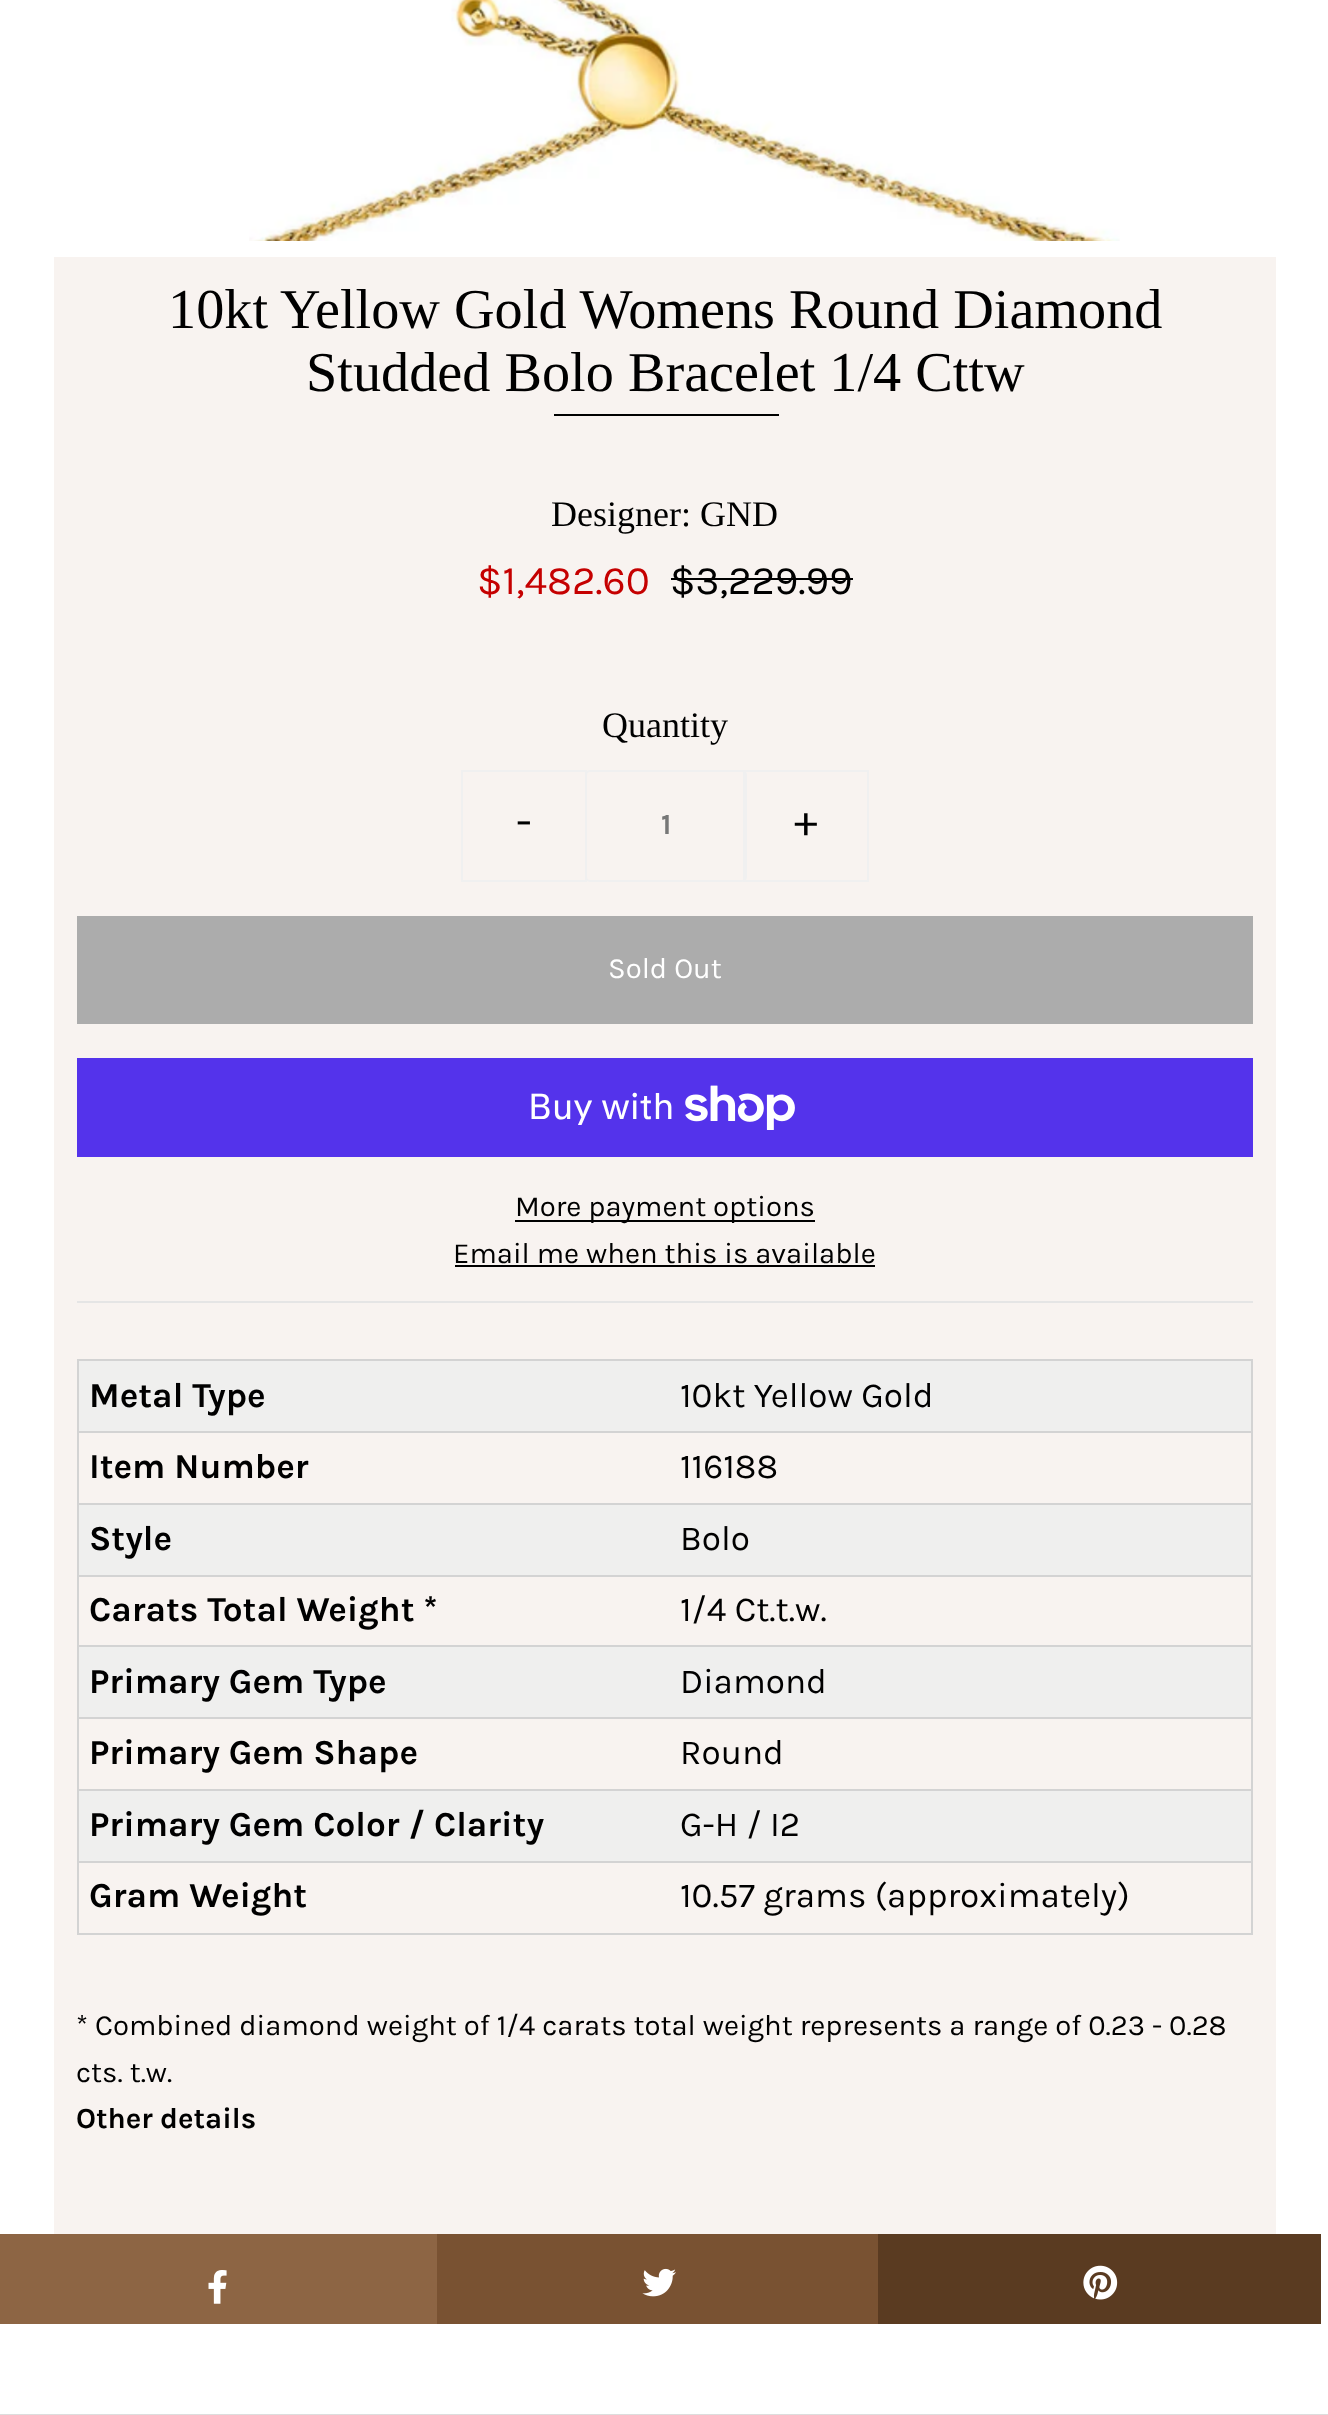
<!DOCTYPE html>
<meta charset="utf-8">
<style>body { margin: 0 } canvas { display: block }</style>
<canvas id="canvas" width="1328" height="2415"></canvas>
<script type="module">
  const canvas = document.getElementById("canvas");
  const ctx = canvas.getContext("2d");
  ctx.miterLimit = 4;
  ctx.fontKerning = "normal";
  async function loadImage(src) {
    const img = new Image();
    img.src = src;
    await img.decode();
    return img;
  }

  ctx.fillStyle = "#ffffff";
  ctx.fillRect(0, 0, 1328, 2415);
  ctx.drawImage(await loadImage("img1.png"), 249, 0, 871, 241);
  ctx.fillStyle = "#f8f3f0";
  ctx.fillRect(54, 257, 1222, 1977);
  ctx.font = "56.25px Liberation Serif";
  ctx.fillStyle = "#000000";
  ctx.fillText("10kt Yellow Gold Womens Round Diamond", 168, 328);
  ctx.fillText("Studded Bolo Bracelet 1/4 Cttw", 306, 391);
  ctx.fillRect(554, 414, 225, 2);
  ctx.fillStyle = "#e5e5e5";
  ctx.fillRect(77, 1301, 1176, 2);
  ctx.font = "36px Liberation Serif";
  ctx.fillStyle = "#000000";
  ctx.fillText("Designer: GND", 551, 526);
  ctx.font = "40.5px Karla";
  ctx.fillStyle = "#c50000";
  ctx.fillText("$1,482.60", 477, 594);
  ctx.fillStyle = "#000000";
  ctx.fillText("$3,229.99", 670, 594);
  ctx.fillRect(671, 578, 182, 2);
  ctx.font = "36px Liberation Serif";
  ctx.fillText("Quantity", 602, 737);
  ctx.strokeStyle = "#f0f0f0";
  ctx.lineWidth = 2;
  ctx.strokeRect(462, 771, 124, 110);
  ctx.font = "45px Karla";
  ctx.fillText("-", 516, 836);
  ctx.beginPath();
  ctx.roundRect(586, 771, 160, 110, 4);
  ctx.stroke();
  ctx.font = "bold 29.25px Karla";
  ctx.fillStyle = "#777777";
  ctx.fillText("1", 661, 834);
  ctx.strokeRect(744, 771, 124, 110);
  ctx.font = "45px Karla";
  ctx.fillStyle = "#000000";
  ctx.fillText("+", 794, 836);
  ctx.fillStyle = "#acacac";
  ctx.fillRect(77, 916, 1176, 108);
  ctx.font = "29.25px Karla";
  ctx.fillStyle = "#ffffff";
  ctx.fillText("Sold Out", 608, 978);
  ctx.fillStyle = "#5433eb";
  ctx.fillRect(77, 1058, 1176, 99);
  ctx.font = "36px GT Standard";
  ctx.fillStyle = "#ffffff";
  ctx.fillText("Buy with", 528, 1119);
  ctx.drawImage(await loadImage("img2.png"), 685, 1085, 110, 45);
  ctx.fillStyle = "#000000";
  ctx.fillRect(515, 1220, 300, 2);
  ctx.font = "29.25px Karla";
  ctx.fillText("More payment options", 515, 1216);
  ctx.fillText("Email me when this is available", 453, 1263);
  ctx.fillRect(455, 1265, 420, 2);
  ctx.fillStyle = "#d3d3d3";
  ctx.fillRect(77, 1359, 1176, 2);
  ctx.fillRect(1251, 1359, 2, 576);
  ctx.fillRect(77, 1933, 1176, 2);
  ctx.fillRect(77, 1359, 2, 576);
  ctx.fillStyle = "#efefee";
  ctx.fillRect(79, 1361, 1172, 70);
  ctx.fillStyle = "#d3d3d3";
  ctx.fillRect(77, 1431, 1176, 2);
  ctx.font = "bold 35.1px Karla";
  ctx.fillStyle = "#000000";
  ctx.fillText("Metal Type", 89, 1407);
  ctx.font = "35.1px Karla";
  ctx.fillText("10kt Yellow Gold", 680, 1407);
  ctx.fillStyle = "#d3d3d3";
  ctx.fillRect(77, 1503, 1176, 2);
  ctx.font = "bold 35.1px Karla";
  ctx.fillStyle = "#000000";
  ctx.fillText("Item Number", 89, 1478);
  ctx.font = "35.1px Karla";
  ctx.fillText("116188", 680, 1478);
  ctx.fillStyle = "#efefee";
  ctx.fillRect(79, 1505, 1172, 70);
  ctx.fillStyle = "#d3d3d3";
  ctx.fillRect(77, 1575, 1176, 2);
  ctx.font = "bold 35.1px Karla";
  ctx.fillStyle = "#000000";
  ctx.fillText("Style", 89, 1550);
  ctx.font = "35.1px Karla";
  ctx.fillText("Bolo", 680, 1550);
  ctx.fillStyle = "#d3d3d3";
  ctx.fillRect(77, 1645, 1176, 2);
  ctx.font = "bold 35.1px Karla";
  ctx.fillStyle = "#000000";
  ctx.fillText("Carats Total Weight *", 89, 1621);
  ctx.font = "35.1px Karla";
  ctx.fillText("1/4 Ct.t.w.", 680, 1621);
  ctx.fillStyle = "#efefee";
  ctx.fillRect(79, 1647, 1172, 70);
  ctx.fillStyle = "#d3d3d3";
  ctx.fillRect(77, 1717, 1176, 2);
  ctx.font = "bold 35.1px Karla";
  ctx.fillStyle = "#000000";
  ctx.fillText("Primary Gem Type", 89, 1693);
  ctx.font = "35.1px Karla";
  ctx.fillText("Diamond", 680, 1693);
  ctx.fillStyle = "#d3d3d3";
  ctx.fillRect(77, 1789, 1176, 2);
  ctx.font = "bold 35.1px Karla";
  ctx.fillStyle = "#000000";
  ctx.fillText("Primary Gem Shape", 89, 1764);
  ctx.font = "35.1px Karla";
  ctx.fillText("Round", 680, 1764);
  ctx.fillStyle = "#efefee";
  ctx.fillRect(79, 1791, 1172, 70);
  ctx.fillStyle = "#d3d3d3";
  ctx.fillRect(77, 1861, 1176, 2);
  ctx.font = "bold 35.1px Karla";
  ctx.fillStyle = "#000000";
  ctx.fillText("Primary Gem Color / Clarity", 89, 1836);
  ctx.font = "35.1px Karla";
  ctx.fillText("G-H / I2", 680, 1836);
  ctx.font = "bold 35.1px Karla";
  ctx.fillText("Gram Weight", 89, 1907);
  ctx.font = "35.1px Karla";
  ctx.fillText("10.57 grams (approximately)", 680, 1907);
  ctx.font = "29.25px Karla";
  ctx.fillText("* Combined diamond weight of 1/4 carats total weight represents a range of 0.23 - 0.28", 76, 2035);
  ctx.fillText("cts. t.w.", 76, 2082);
  ctx.font = "bold 29.25px Karla";
  ctx.fillText("Other details", 76, 2128);
  ctx.fillStyle = "#8d6544";
  ctx.fillRect(0, 2234, 437, 90);
  ctx.drawImage(await loadImage("img3.png"), 208, 2270, 19, 34);
  ctx.fillStyle = "#795232";
  ctx.fillRect(437, 2234, 441, 90);
  ctx.drawImage(await loadImage("img4.png"), 642, 2268, 34, 29);
  ctx.fillStyle = "#5a3b21";
  ctx.fillRect(878, 2234, 443, 90);
  ctx.drawImage(await loadImage("img5.png"), 1083, 2265, 35, 35);
  ctx.fillStyle = "#dddddd";
  ctx.fillRect(0, 2414, 1328, 1);
</script>
